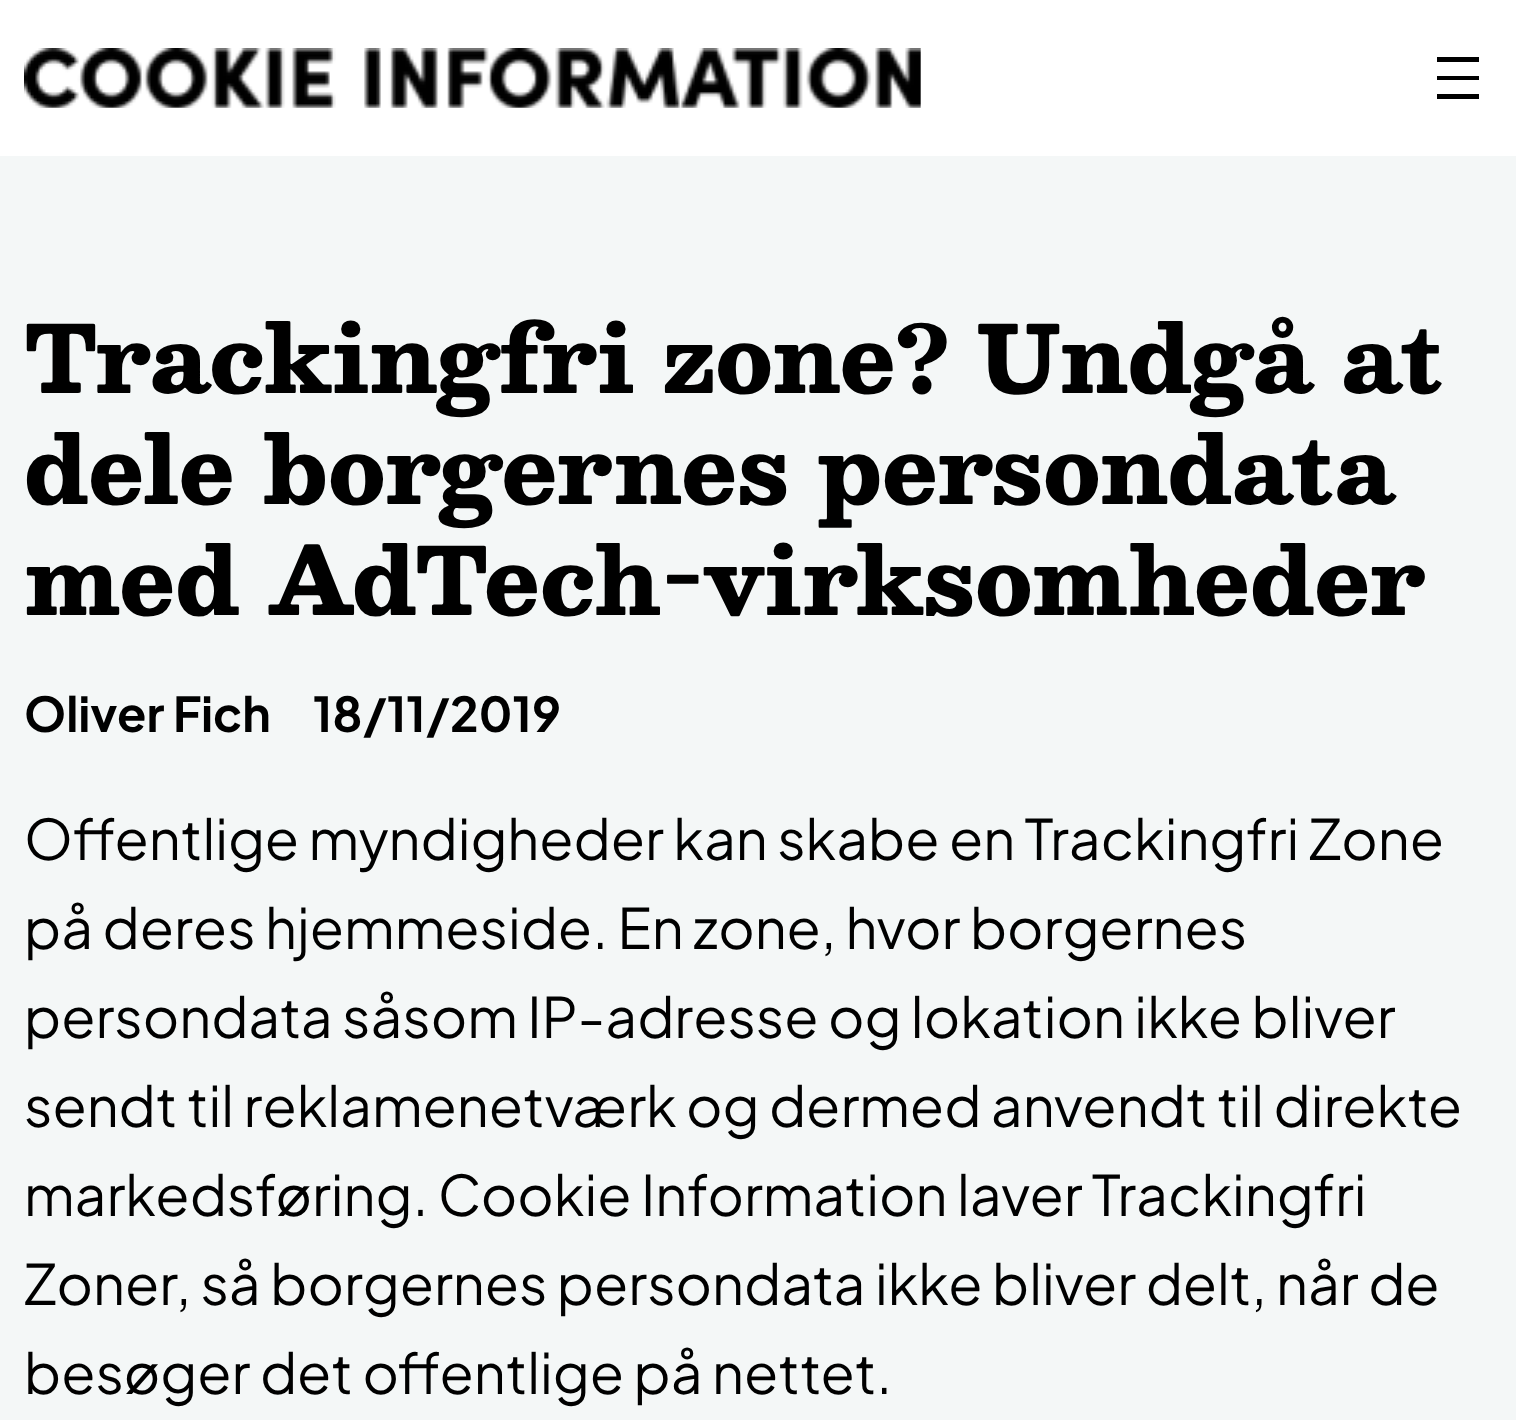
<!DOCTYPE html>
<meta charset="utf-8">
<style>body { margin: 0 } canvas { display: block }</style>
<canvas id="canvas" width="1516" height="1420"></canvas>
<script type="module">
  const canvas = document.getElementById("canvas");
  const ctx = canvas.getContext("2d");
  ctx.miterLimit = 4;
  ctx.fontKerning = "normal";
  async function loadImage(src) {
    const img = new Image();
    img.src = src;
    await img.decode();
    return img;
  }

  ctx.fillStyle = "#ffffff";
  ctx.fillRect(0, 0, 1516, 1420);
  ctx.drawImage(await loadImage("img1.png"), 24, 48, 897, 60);
  ctx.fillStyle = "#000000";
  ctx.fillRect(1437, 57, 42, 5);
  ctx.fillRect(1437, 76, 42, 4);
  ctx.fillRect(1437, 94, 42, 5);
  ctx.fillStyle = "#f4f7f7";
  ctx.fillRect(0, 156, 1516, 1264);
  ctx.font = "800 92.4px Besley";
  ctx.fillStyle = "#000000";
  ctx.fillText("Trackingfri zone? Undgå at", 24, 393);
  ctx.fillText("dele borgernes persondata", 24, 504);
  ctx.fillText("med AdTech-virksomheder", 24, 615);
  ctx.font = "bold 48px Plus Jakarta Sans";
  ctx.fillText("Oliver Fich", 24, 732);
  ctx.fillText("18/11/2019", 313, 732);
  ctx.font = "55.75px Plus Jakarta Sans";
  ctx.fillText("Offentlige myndigheder kan skabe en Trackingfri Zone", 24, 860);
  ctx.fillText("på deres hjemmeside. En zone, hvor borgernes", 24, 949);
  ctx.fillText("persondata såsom IP-adresse og lokation ikke bliver", 24, 1038);
  ctx.fillText("sendt til reklamenetværk og dermed anvendt til direkte", 24, 1127);
  ctx.fillText("markedsføring. Cookie Information laver Trackingfri", 24, 1216);
  ctx.fillText("Zoner, så borgernes persondata ikke bliver delt, når de", 24, 1305);
  ctx.fillText("besøger det offentlige på nettet.", 24, 1394);
</script>
